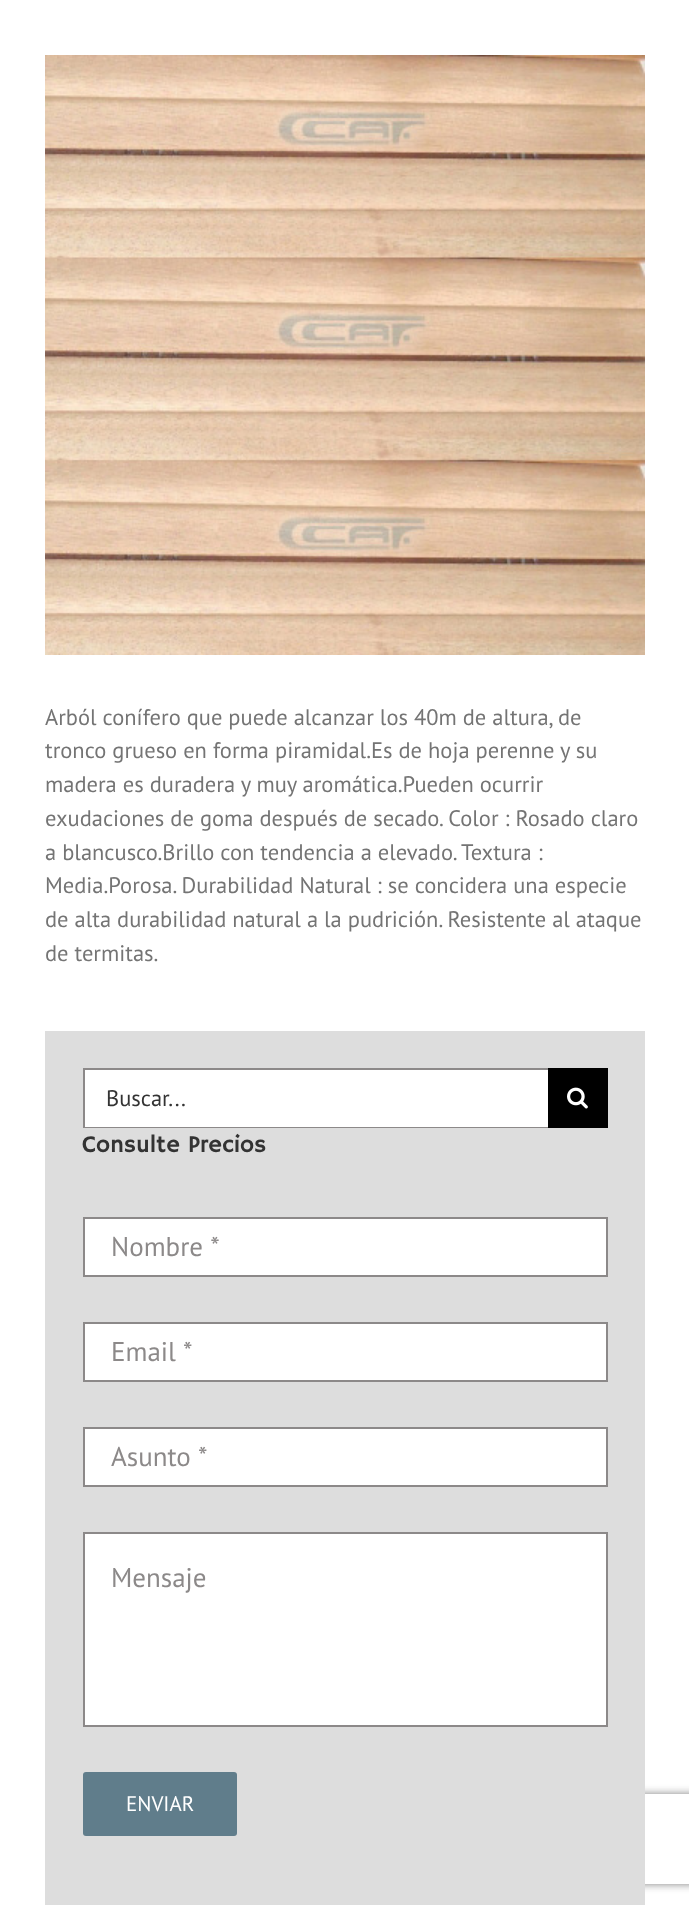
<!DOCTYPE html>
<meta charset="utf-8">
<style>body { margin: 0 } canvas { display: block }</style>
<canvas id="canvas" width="689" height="1905"></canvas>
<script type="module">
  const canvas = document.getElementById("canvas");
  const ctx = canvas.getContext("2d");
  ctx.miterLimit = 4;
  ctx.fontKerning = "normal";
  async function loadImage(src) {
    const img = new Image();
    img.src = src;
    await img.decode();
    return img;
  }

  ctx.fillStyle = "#ffffff";
  ctx.fillRect(0, 0, 689, 1905);
  ctx.drawImage(await loadImage("img1.png"), 45, 55, 600, 600);
  ctx.font = "22.5px PT Sans";
  ctx.fillStyle = "#747474";
  ctx.fillText("Arból conífero que puede alcanzar los 40m de altura, de", 45, 725);
  ctx.fillText("tronco grueso en forma piramidal.Es de hoja perenne y su", 45, 758);
  ctx.fillText("madera es duradera y muy aromática.Pueden ocurrir", 45, 792);
  ctx.fillText("exudaciones de goma después de secado. Color : Rosado claro", 45, 826);
  ctx.fillText("a blancusco.Brillo con tendencia a elevado. Textura :", 45, 860);
  ctx.fillText("Media.Porosa. Durabilidad Natural : se concidera una especie", 45, 893);
  ctx.fillText("de alta durabilidad natural a la pudrición. Resistente al ataque", 45, 927);
  ctx.fillText("de termitas.", 45, 961);
  ctx.save();
  ctx.beginPath();
  ctx.moveTo(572, 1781);
  ctx.lineTo(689, 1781);
  ctx.lineTo(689, 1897);
  ctx.lineTo(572, 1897);
  ctx.closePath();
  ctx.moveTo(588, 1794);
  ctx.lineTo(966, 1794);
  ctx.bezierCurveTo(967.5, 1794, 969, 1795.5, 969, 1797);
  ctx.lineTo(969, 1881);
  ctx.bezierCurveTo(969, 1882.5, 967.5, 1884, 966, 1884);
  ctx.lineTo(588, 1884);
  ctx.bezierCurveTo(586.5, 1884, 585, 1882.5, 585, 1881);
  ctx.lineTo(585, 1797);
  ctx.bezierCurveTo(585, 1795.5, 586.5, 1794, 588, 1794);
  ctx.closePath();
  ctx.clip("evenodd");
  ctx.fillStyle = "#808080";
  ctx.filter = "blur(4px)";
  ctx.beginPath();
  ctx.roundRect(585, 1794, 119, 90, 3);
  ctx.fill();
  ctx.filter = "none";
  ctx.restore();
  ctx.fillStyle = "#dddddd";
  ctx.fillRect(45, 1031, 600, 874);
  ctx.fillStyle = "#ffffff";
  ctx.fillRect(85, 1070, 463, 57);
  ctx.fillStyle = "#8c8989";
  ctx.fillRect(83, 1068, 465, 2);
  ctx.fillRect(83, 1127, 465, 1);
  ctx.fillRect(83, 1068, 2, 60);
  ctx.fillStyle = "#333333";
  ctx.fillText("Buscar...", 106, 1106);
  ctx.fillStyle = "#000000";
  ctx.fillRect(548, 1068, 60, 60);
  ctx.drawImage(await loadImage("img2.png"), 567, 1087, 21, 22);
  ctx.font = "24px Hammersmith One";
  ctx.fillStyle = "#333333";
  ctx.fillText("Consulte Precios", 82, 1152);
  ctx.fillStyle = "#ffffff";
  ctx.beginPath();
  ctx.rect(84, 1218, 523, 58);
  ctx.fill();
  ctx.strokeStyle = "#8c8989";
  ctx.lineWidth = 2;
  ctx.stroke();
  ctx.font = "27px PT Sans";
  ctx.fillStyle = "#8c8989";
  ctx.fillText("Nombre *", 111, 1256);
  ctx.fillStyle = "#ffffff";
  ctx.beginPath();
  ctx.rect(84, 1323, 523, 58);
  ctx.fill();
  ctx.stroke();
  ctx.fillStyle = "#8c8989";
  ctx.fillText("Email *", 111, 1361);
  ctx.fillStyle = "#ffffff";
  ctx.beginPath();
  ctx.rect(84, 1428, 523, 58);
  ctx.fill();
  ctx.stroke();
  ctx.fillStyle = "#8c8989";
  ctx.fillText("Asunto *", 111, 1466);
  ctx.fillStyle = "#ffffff";
  ctx.beginPath();
  ctx.rect(84, 1533, 523, 193);
  ctx.fill();
  ctx.stroke();
  ctx.fillStyle = "#8c8989";
  ctx.fillText("Mensaje", 111, 1587);
  ctx.fillStyle = "#607d8b";
  ctx.beginPath();
  ctx.roundRect(83, 1772, 154, 64, 3);
  ctx.fill();
  ctx.font = "21px PT Sans";
  ctx.fillStyle = "#ffffff";
  ctx.fillText("ENVIAR", 126, 1811);
</script>
